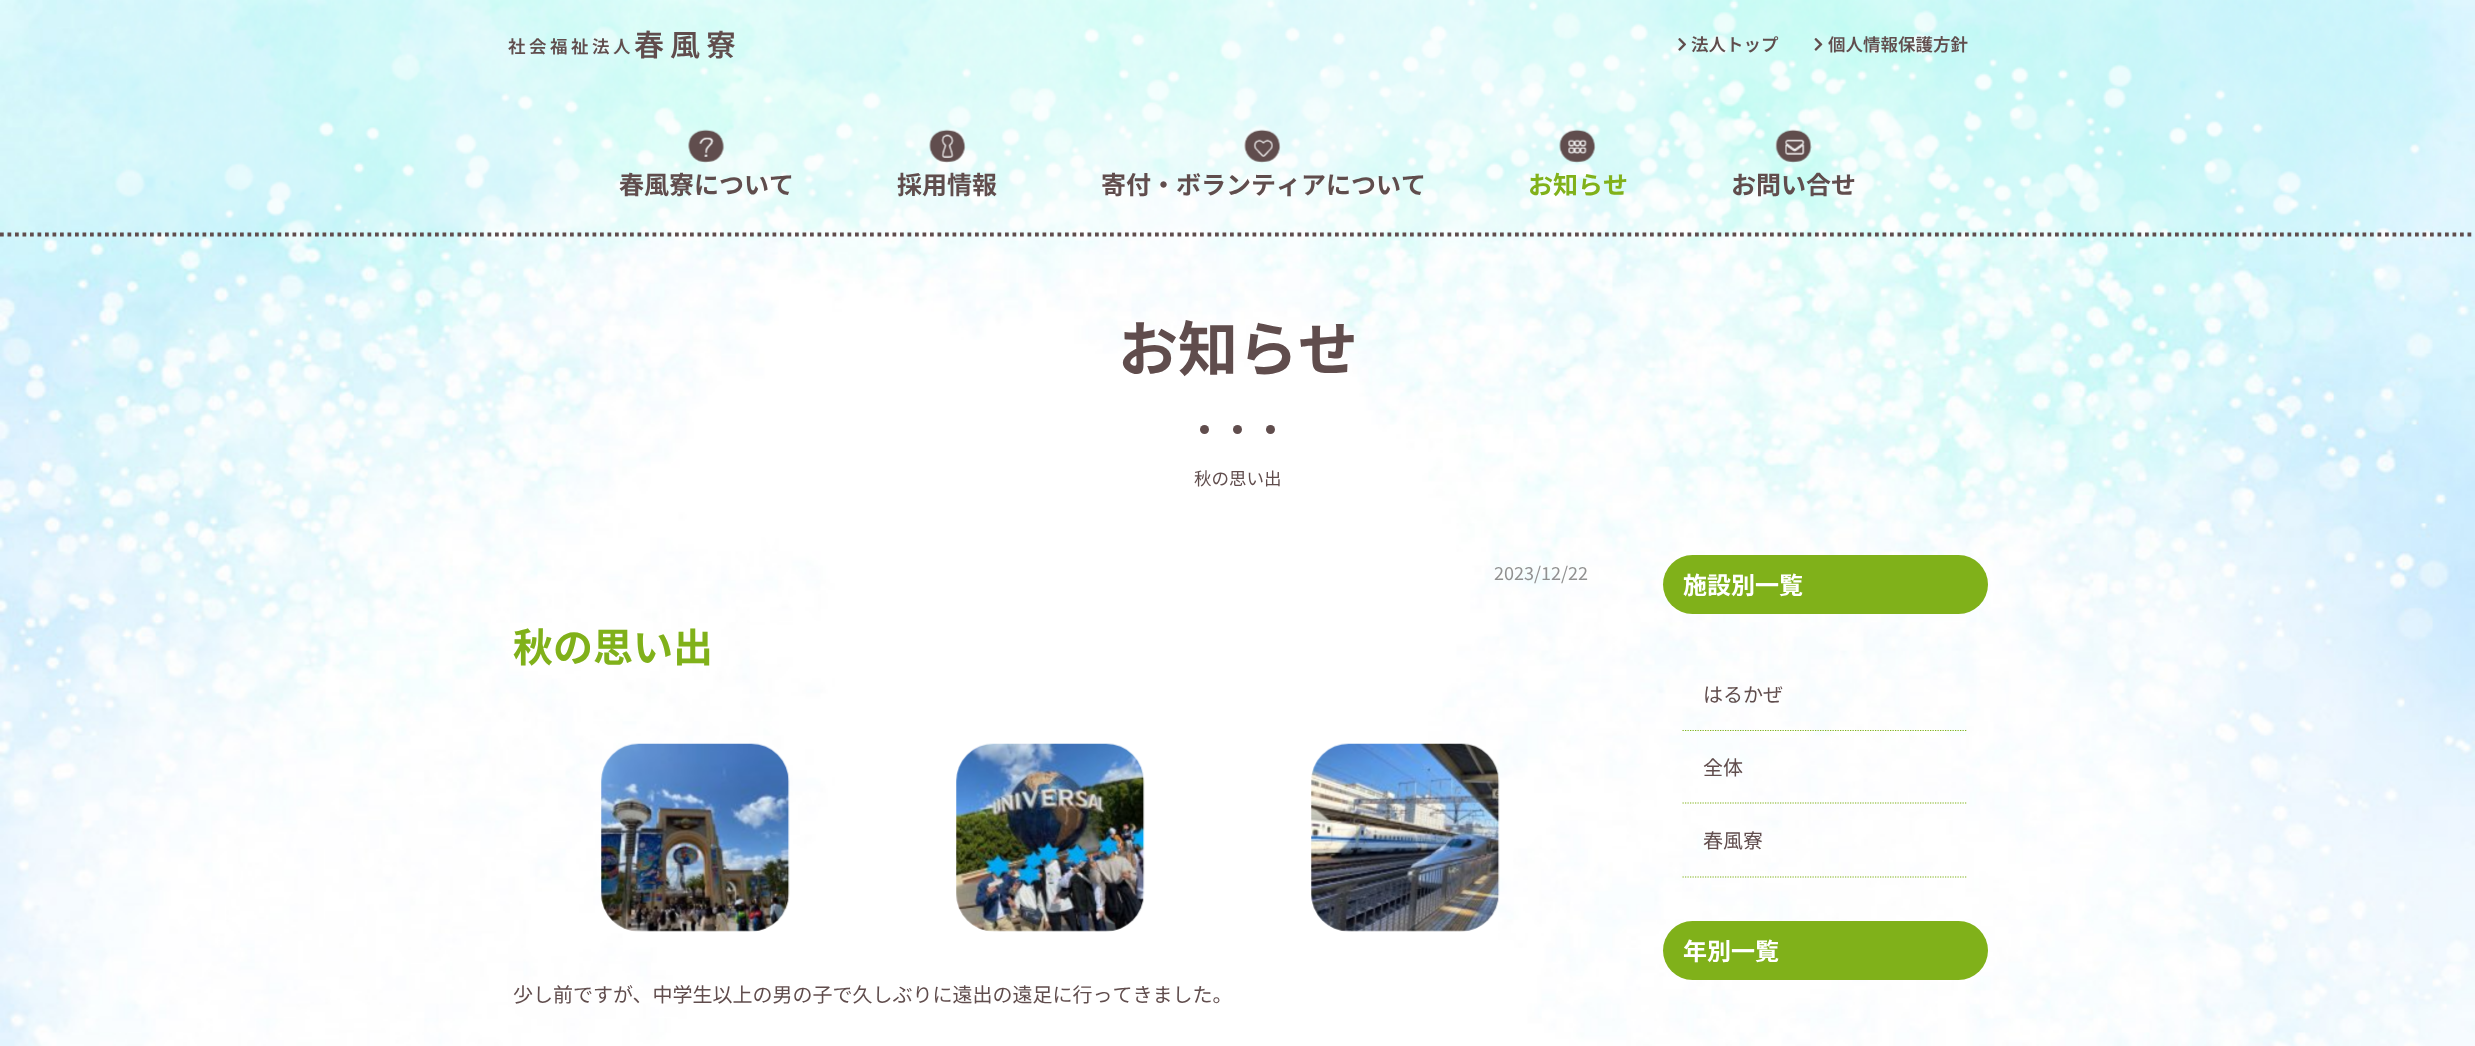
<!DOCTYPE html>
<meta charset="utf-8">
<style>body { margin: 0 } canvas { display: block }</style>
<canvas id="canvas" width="2475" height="1046"></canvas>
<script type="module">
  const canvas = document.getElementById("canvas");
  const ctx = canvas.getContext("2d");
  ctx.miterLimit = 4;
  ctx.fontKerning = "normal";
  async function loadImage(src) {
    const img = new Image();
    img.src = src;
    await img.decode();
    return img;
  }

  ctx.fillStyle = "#ffffff";
  ctx.fillRect(0, 0, 2475, 1046);
  ctx.drawImage(await loadImage("img1.png"), 0, 0, 2475, 1046);
  ctx.drawImage(await loadImage("img2.png"), 117, 0, 2315, 236);
  ctx.beginPath();
  ctx.moveTo(0, 234.5);
  ctx.lineTo(2475, 234.5);
  ctx.strokeStyle = "#604d4d";
  ctx.lineWidth = 3.8;
  ctx.setLineDash([3.75, 3.75]);
  ctx.stroke();
  ctx.letterSpacing = "3.5px";
  ctx.font = "600 17.5px Noto Sans JP";
  ctx.fillStyle = "#604d4d";
  ctx.fillText("社会福祉法人", 508, 53);
  ctx.letterSpacing = "6px";
  ctx.font = "600 30px Noto Sans JP";
  ctx.fillText("春風寮", 634, 56);
  ctx.drawImage(await loadImage("img3.png"), 1678, 38, 8, 13);
  ctx.letterSpacing = "0px";
  ctx.font = "600 17.5px Noto Sans JP";
  ctx.fillText("法人トップ", 1691, 51);
  ctx.drawImage(await loadImage("img4.png"), 1814, 38, 9, 13);
  ctx.fillText("個人情報保護方針", 1828, 51);
  ctx.drawImage(await loadImage("img5.png"), 688, 129, 37, 34);
  ctx.font = "bold 25px Noto Sans JP";
  ctx.fillText("春風寮について", 619, 194);
  ctx.drawImage(await loadImage("img6.png"), 929, 129, 37, 34);
  ctx.fillText("採用情報", 897, 194);
  ctx.drawImage(await loadImage("img7.png"), 1244, 129, 37, 34);
  ctx.fillText("寄付・ボランティアについて", 1101, 194);
  ctx.drawImage(await loadImage("img8.png"), 1559, 129, 37, 34);
  ctx.fillStyle = "#80b11a";
  ctx.fillText("お知らせ", 1528, 194);
  ctx.drawImage(await loadImage("img9.png"), 1775, 129, 37, 34);
  ctx.fillStyle = "#604d4d";
  ctx.fillText("お問い合せ", 1731, 194);
  ctx.beginPath();
  ctx.arc(1204.5, 429.5, 4.5, 0, Math.PI * 2);
  ctx.fill();
  ctx.beginPath();
  ctx.arc(1237.5, 429.5, 4.5, 0, Math.PI * 2);
  ctx.fill();
  ctx.beginPath();
  ctx.arc(1270.5, 429.5, 4.5, 0, Math.PI * 2);
  ctx.fill();
  ctx.font = "bold 60px Noto Sans JP";
  ctx.fillText("お知らせ", 1118, 371);
  ctx.font = "17.5px Noto Sans JP";
  ctx.fillText("秋の思い出", 1194, 485);
  ctx.font = "18px Noto Sans JP";
  ctx.fillStyle = "#919191";
  ctx.fillText("2023/12/22", 1494, 580);
  ctx.font = "bold 40px Noto Sans JP";
  ctx.fillStyle = "#80b11a";
  ctx.fillText("秋の思い出", 513, 662);
  ctx.drawImage(await loadImage("img10.png"), 601, 743, 189, 189);
  ctx.drawImage(await loadImage("img11.png"), 956, 743, 189, 189);
  ctx.drawImage(await loadImage("img12.png"), 1311, 743, 189, 189);
  ctx.font = "20px Noto Sans JP";
  ctx.fillStyle = "#604d4d";
  ctx.fillText("少し前ですが、中学生以上の男の子で久しぶりに遠出の遠足に行ってきました。", 513, 1002);
  ctx.fillStyle = "#80b11a";
  ctx.beginPath();
  ctx.roundRect(1663, 555, 325, 59, 29.5);
  ctx.fill();
  ctx.font = "bold 24px Noto Sans JP";
  ctx.fillStyle = "#ffffff";
  ctx.fillText("施設別一覧", 1683, 594);
  ctx.beginPath();
  ctx.moveTo(1682.5, 730.5);
  ctx.lineTo(1967.5, 730.5);
  ctx.strokeStyle = "#80b11a";
  ctx.lineWidth = 1.2;
  ctx.setLineDash([1.25, 1.25]);
  ctx.stroke();
  ctx.font = "20px Noto Sans JP";
  ctx.fillStyle = "#604d4d";
  ctx.fillText("はるかぜ", 1703, 702);
  ctx.beginPath();
  ctx.moveTo(1682.5, 803);
  ctx.lineTo(1967.5, 803);
  ctx.stroke();
  ctx.fillText("全体", 1703, 775);
  ctx.beginPath();
  ctx.moveTo(1682.5, 877);
  ctx.lineTo(1967.5, 877);
  ctx.stroke();
  ctx.fillText("春風寮", 1703, 848);
  ctx.fillStyle = "#80b11a";
  ctx.beginPath();
  ctx.roundRect(1663, 921, 325, 59, 29.5);
  ctx.fill();
  ctx.font = "bold 24px Noto Sans JP";
  ctx.fillStyle = "#ffffff";
  ctx.fillText("年別一覧", 1683, 960);
</script>
